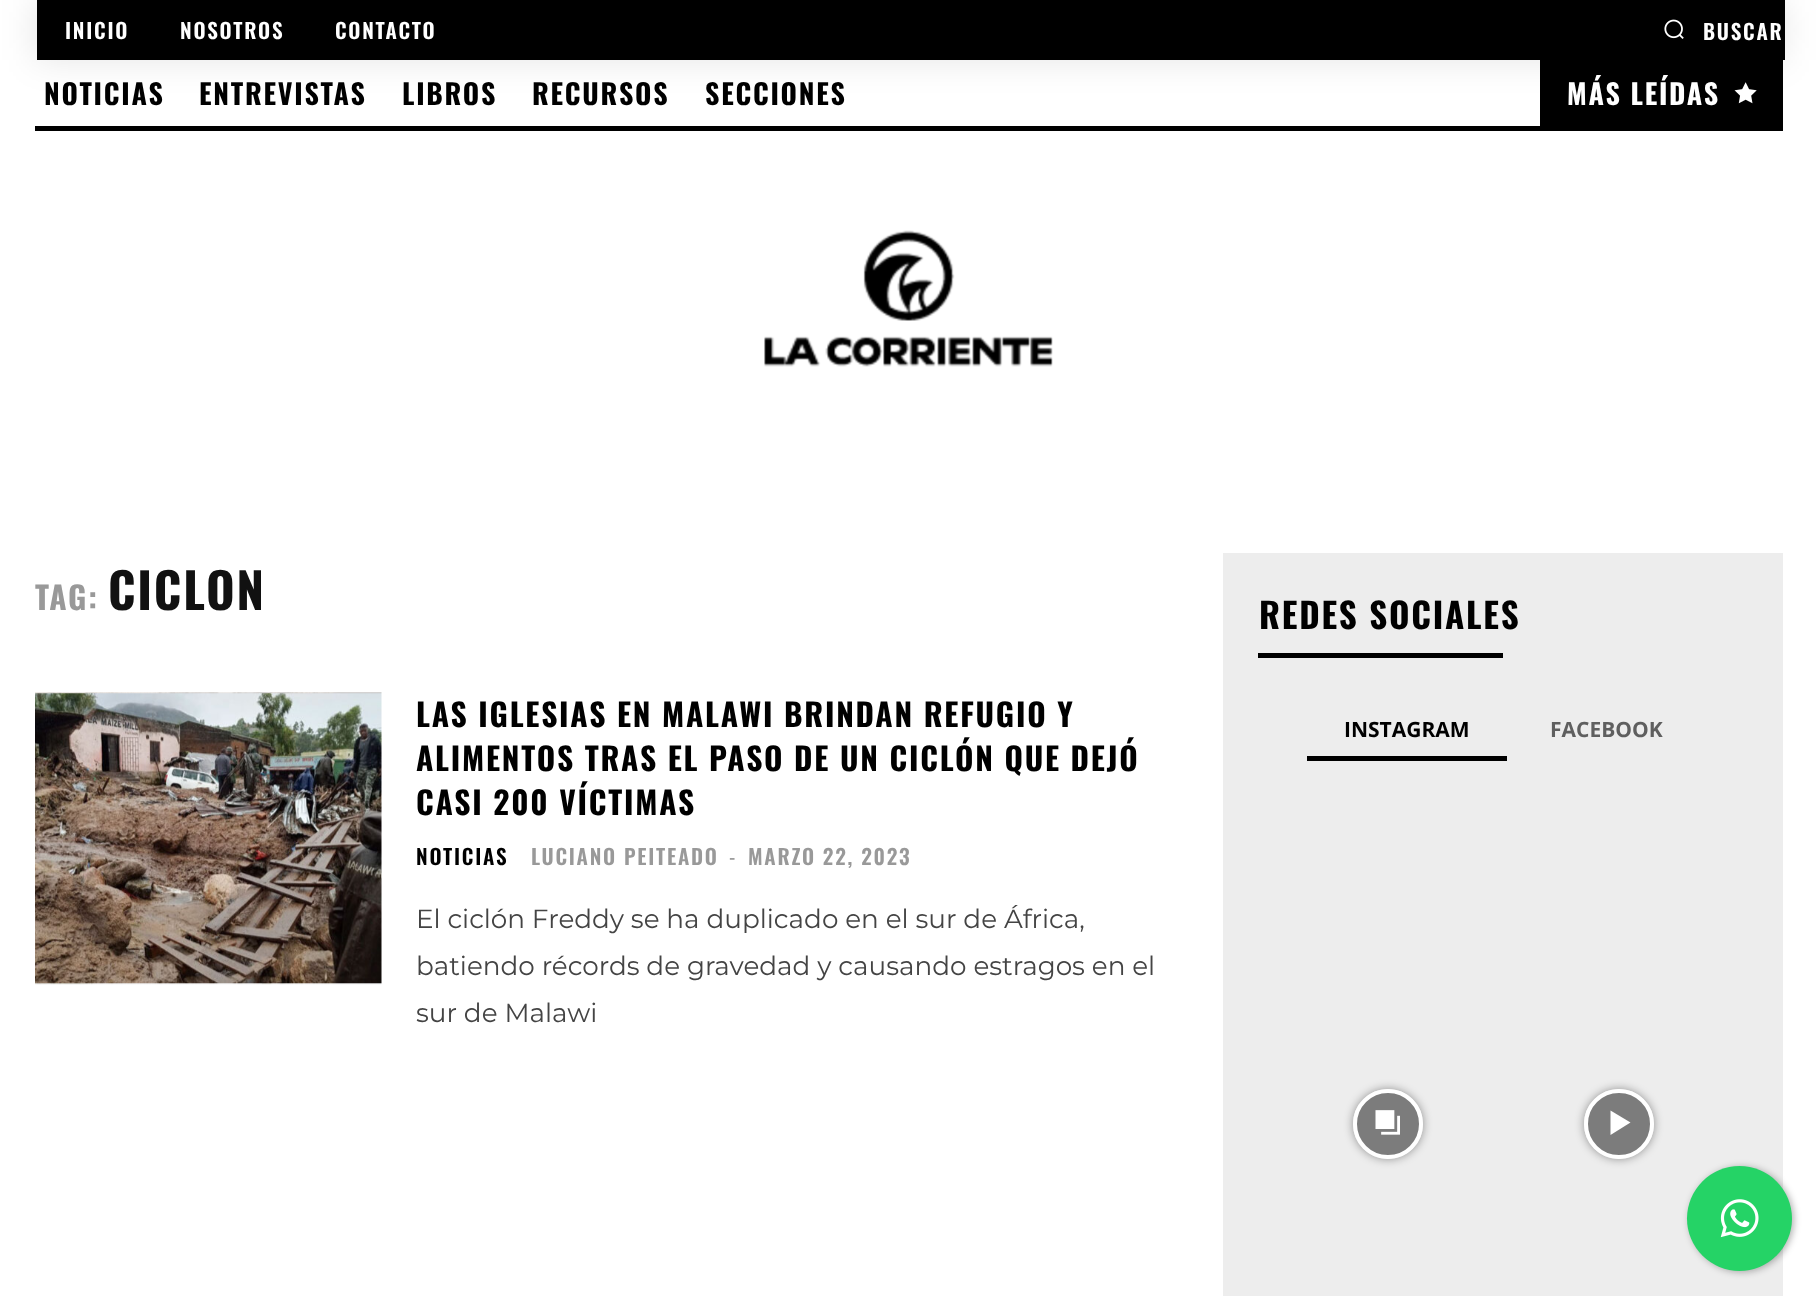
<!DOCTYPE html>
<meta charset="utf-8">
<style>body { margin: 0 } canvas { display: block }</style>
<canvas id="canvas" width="1818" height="1296"></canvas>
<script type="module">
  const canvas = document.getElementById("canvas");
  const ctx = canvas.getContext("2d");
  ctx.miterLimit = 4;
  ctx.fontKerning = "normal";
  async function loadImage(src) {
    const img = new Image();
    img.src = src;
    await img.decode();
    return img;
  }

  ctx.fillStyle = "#ffffff";
  ctx.fillRect(0, 0, 1818, 1296);
  ctx.fillStyle = "rgba(0, 0, 0, 0.1)";
  ctx.filter = "blur(17.5px)";
  ctx.beginPath();
  ctx.rect(35, 0, 1748, 60);
  ctx.fill();
  ctx.filter = "none";
  ctx.fillStyle = "#000000";
  ctx.fillRect(37, 0, 1748, 60);
  ctx.letterSpacing = "1.75px";
  ctx.font = "600 21px Oswald";
  ctx.fillStyle = "#ffffff";
  ctx.fillText("INICIO", 65, 39);
  ctx.fillText("NOSOTROS", 180, 39);
  ctx.fillText("CONTACTO", 335, 39);
  ctx.drawImage(await loadImage("img1.png"), 1664, 19, 20, 20);
  ctx.fillText("BUSCAR", 1703, 40);
  ctx.font = "bold 28px Oswald";
  ctx.fillStyle = "#000000";
  ctx.fillText("NOTICIAS", 44, 105);
  ctx.fillText("ENTREVISTAS", 199, 105);
  ctx.fillText("LIBROS", 402, 105);
  ctx.fillText("RECURSOS", 532, 105);
  ctx.fillText("SECCIONES", 705, 105);
  ctx.fillRect(1540, 60, 243, 66);
  ctx.fillStyle = "#ffffff";
  ctx.fillText("MÁS LEÍDAS", 1567, 105);
  ctx.drawImage(await loadImage("img2.png"), 1734, 82, 23, 22);
  ctx.fillStyle = "#000000";
  ctx.fillRect(35, 126, 1748, 5);
  ctx.drawImage(await loadImage("img3.png"), 764, 230, 289, 137);
  ctx.font = "bold 31.5px Oswald";
  ctx.fillStyle = "#999999";
  ctx.fillText("TAG:", 35, 610);
  ctx.font = "bold 49px Oswald";
  ctx.fillStyle = "#111111";
  ctx.fillText("CICLON", 108, 610);
  ctx.drawImage(await loadImage("img4.png"), 35, 692, 347, 293);
  ctx.font = "bold 31.5px Oswald";
  ctx.fillStyle = "#000000";
  ctx.fillText("LAS IGLESIAS EN MALAWI BRINDAN REFUGIO Y", 416, 727);
  ctx.fillText("ALIMENTOS TRAS EL PASO DE UN CICLÓN QUE DEJÓ", 416, 771);
  ctx.fillText("CASI 200 VÍCTIMAS", 416, 815);
  ctx.font = "600 21px Oswald";
  ctx.fillText("NOTICIAS", 416, 865);
  ctx.fillStyle = "#999999";
  ctx.fillText("LUCIANO PEITEADO", 531, 865);
  ctx.font = "21px Oswald";
  ctx.fillText("-", 729, 865);
  ctx.font = "600 21px Oswald";
  ctx.fillText("MARZO 22, 2023", 748, 865);
  ctx.letterSpacing = "0px";
  ctx.font = "26.25px Montserrat";
  ctx.fillStyle = "#444444";
  ctx.fillText("El ciclón Freddy se ha duplicado en el sur de África,", 416, 928);
  ctx.fillText("batiendo récords de gravedad y causando estragos en el", 416, 975);
  ctx.fillText("sur de Malawi", 416, 1022);
  ctx.fillStyle = "#ededed";
  ctx.fillRect(1223, 553, 560, 743);
  ctx.letterSpacing = "1.75px";
  ctx.font = "bold 35px Oswald";
  ctx.fillStyle = "#000000";
  ctx.fillText("REDES SOCIALES", 1259, 629);
  ctx.fillRect(1258, 653, 245, 5);
  ctx.fillRect(1307, 756, 200, 5);
  ctx.letterSpacing = "0px";
  ctx.font = "bold 21px Open Sans";
  ctx.fillText("INSTAGRAM", 1344, 737);
  ctx.fillStyle = "#5f5f5f";
  ctx.fillText("FACEBOOK", 1550, 737);
  ctx.save();
  ctx.beginPath();
  ctx.moveTo(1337, 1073);
  ctx.lineTo(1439, 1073);
  ctx.lineTo(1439, 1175);
  ctx.lineTo(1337, 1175);
  ctx.closePath();
  ctx.moveTo(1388, 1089);
  ctx.bezierCurveTo(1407.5, 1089, 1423, 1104.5, 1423, 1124);
  ctx.bezierCurveTo(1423, 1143.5, 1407.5, 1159, 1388, 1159);
  ctx.bezierCurveTo(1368.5, 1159, 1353, 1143.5, 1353, 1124);
  ctx.bezierCurveTo(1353, 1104.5, 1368.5, 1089, 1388, 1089);
  ctx.closePath();
  ctx.clip("evenodd");
  ctx.fillStyle = "rgba(0, 0, 0, 0.4)";
  ctx.filter = "blur(5px)";
  ctx.beginPath();
  ctx.roundRect(1353, 1089, 70, 70, 35);
  ctx.fill();
  ctx.filter = "none";
  ctx.restore();
  ctx.fillStyle = "rgba(0, 0, 0, 0.48)";
  ctx.beginPath();
  ctx.arc(1388, 1124, 33, 0, Math.PI * 2);
  ctx.fill();
  ctx.strokeStyle = "#ffffff";
  ctx.lineWidth = 4;
  ctx.stroke();
  ctx.drawImage(await loadImage("img5.png"), 1375, 1110, 25, 25);
  ctx.save();
  ctx.beginPath();
  ctx.moveTo(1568, 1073);
  ctx.lineTo(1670, 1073);
  ctx.lineTo(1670, 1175);
  ctx.lineTo(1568, 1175);
  ctx.closePath();
  ctx.moveTo(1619, 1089);
  ctx.bezierCurveTo(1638.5, 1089, 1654, 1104.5, 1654, 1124);
  ctx.bezierCurveTo(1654, 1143.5, 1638.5, 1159, 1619, 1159);
  ctx.bezierCurveTo(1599.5, 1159, 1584, 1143.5, 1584, 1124);
  ctx.bezierCurveTo(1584, 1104.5, 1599.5, 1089, 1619, 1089);
  ctx.closePath();
  ctx.clip("evenodd");
  ctx.fillStyle = "rgba(0, 0, 0, 0.4)";
  ctx.filter = "blur(5px)";
  ctx.beginPath();
  ctx.roundRect(1584, 1089, 70, 70, 35);
  ctx.fill();
  ctx.filter = "none";
  ctx.restore();
  ctx.beginPath();
  ctx.arc(1619, 1124, 33, 0, Math.PI * 2);
  ctx.fill();
  ctx.stroke();
  ctx.fillStyle = "#ffffff";
  ctx.beginPath();
  ctx.moveTo(1610.5, 1110.5);
  ctx.lineTo(1610.5, 1135);
  ctx.lineTo(1630.5, 1122.5);
  ctx.closePath();
  ctx.fill();
  ctx.fillStyle = "rgba(0, 0, 0, 0.3)";
  ctx.filter = "blur(3.5px)";
  ctx.beginPath();
  ctx.roundRect(1689, 1167, 105, 105, 52.5);
  ctx.fill();
  ctx.filter = "none";
  ctx.fillStyle = "#25d366";
  ctx.beginPath();
  ctx.arc(1739.5, 1218.5, 52.5, 0, Math.PI * 2);
  ctx.fill();
  ctx.drawImage(await loadImage("img6.png"), 1720, 1199, 39, 39);
</script>
